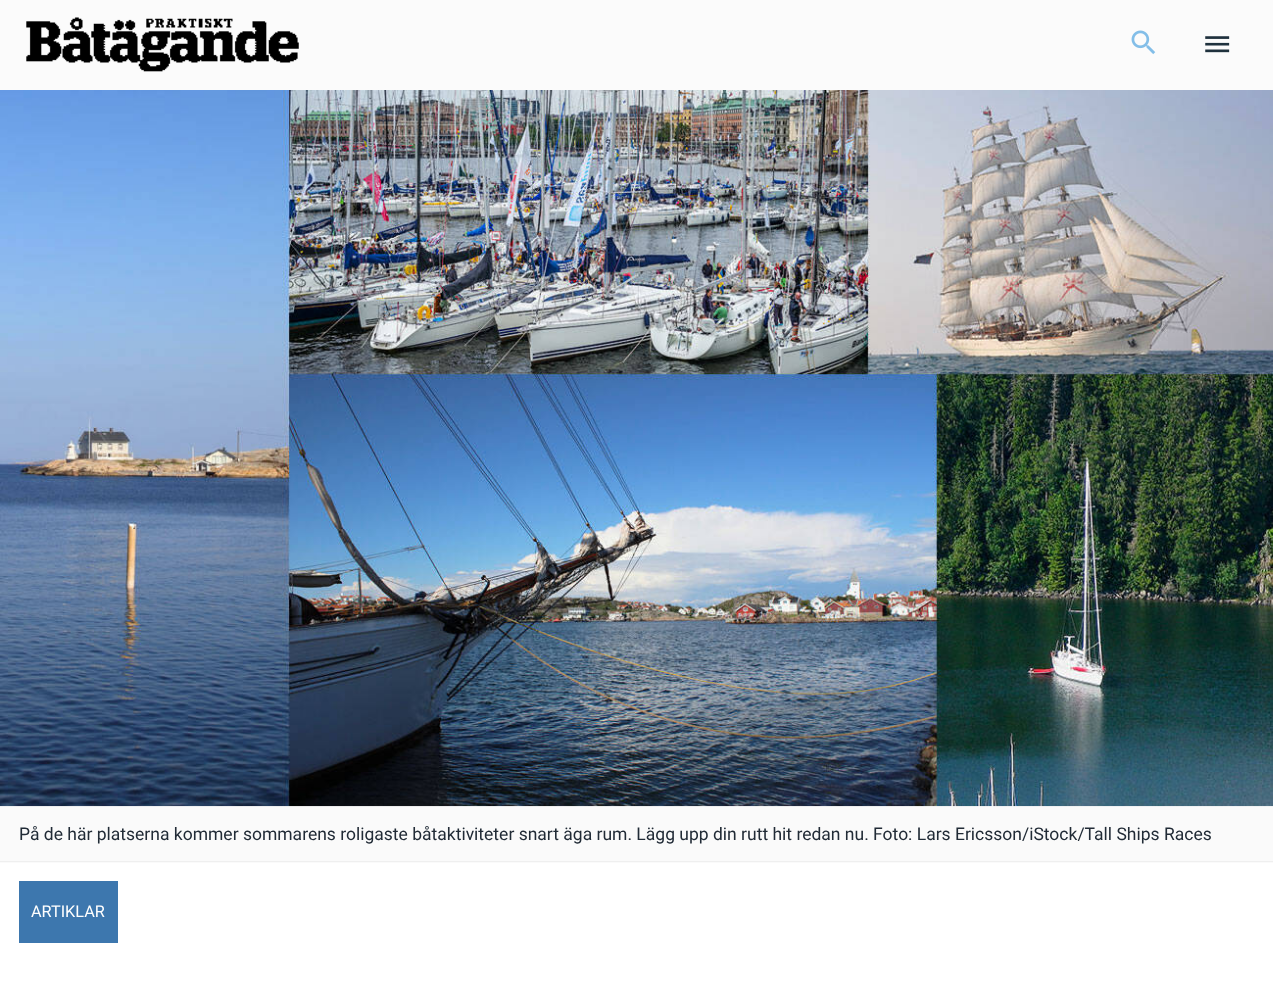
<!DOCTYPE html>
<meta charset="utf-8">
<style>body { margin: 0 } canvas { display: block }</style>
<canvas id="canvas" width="1273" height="981"></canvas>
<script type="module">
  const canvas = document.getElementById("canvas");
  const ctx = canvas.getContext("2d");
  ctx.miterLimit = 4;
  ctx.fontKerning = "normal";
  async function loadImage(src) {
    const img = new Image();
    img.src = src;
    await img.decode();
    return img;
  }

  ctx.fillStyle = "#ffffff";
  ctx.fillRect(0, 0, 1273, 981);
  ctx.fillStyle = "#fbfbfb";
  ctx.fillRect(0, 0, 1273, 90);
  ctx.drawImage(await loadImage("img1.png"), 26, 17, 273, 55);
  ctx.drawImage(await loadImage("img2.png"), 1131, 30, 25, 25);
  ctx.drawImage(await loadImage("img3.png"), 1205, 36, 25, 17);
  ctx.fillStyle = "#fafafa";
  ctx.fillRect(0, 806, 1273, 57);
  ctx.drawImage(await loadImage("img4.png"), 0, 90, 1273, 717);
  ctx.fillStyle = "#efefef";
  ctx.fillRect(0, 861, 1273, 1);
  ctx.font = "17.5px Roboto";
  ctx.fillStyle = "#212b36";
  ctx.fillText("På de här platserna kommer sommarens roligaste båtaktiviteter snart äga rum. Lägg upp din rutt hit redan nu. Foto: Lars Ericsson/iStock/Tall Ships Races", 19, 840);
  ctx.fillStyle = "#3d77ae";
  ctx.fillRect(19, 881, 99, 62);
  ctx.font = "16.25px Roboto";
  ctx.fillStyle = "#ffffff";
  ctx.fillText("ARTIKLAR", 31, 917);
</script>
